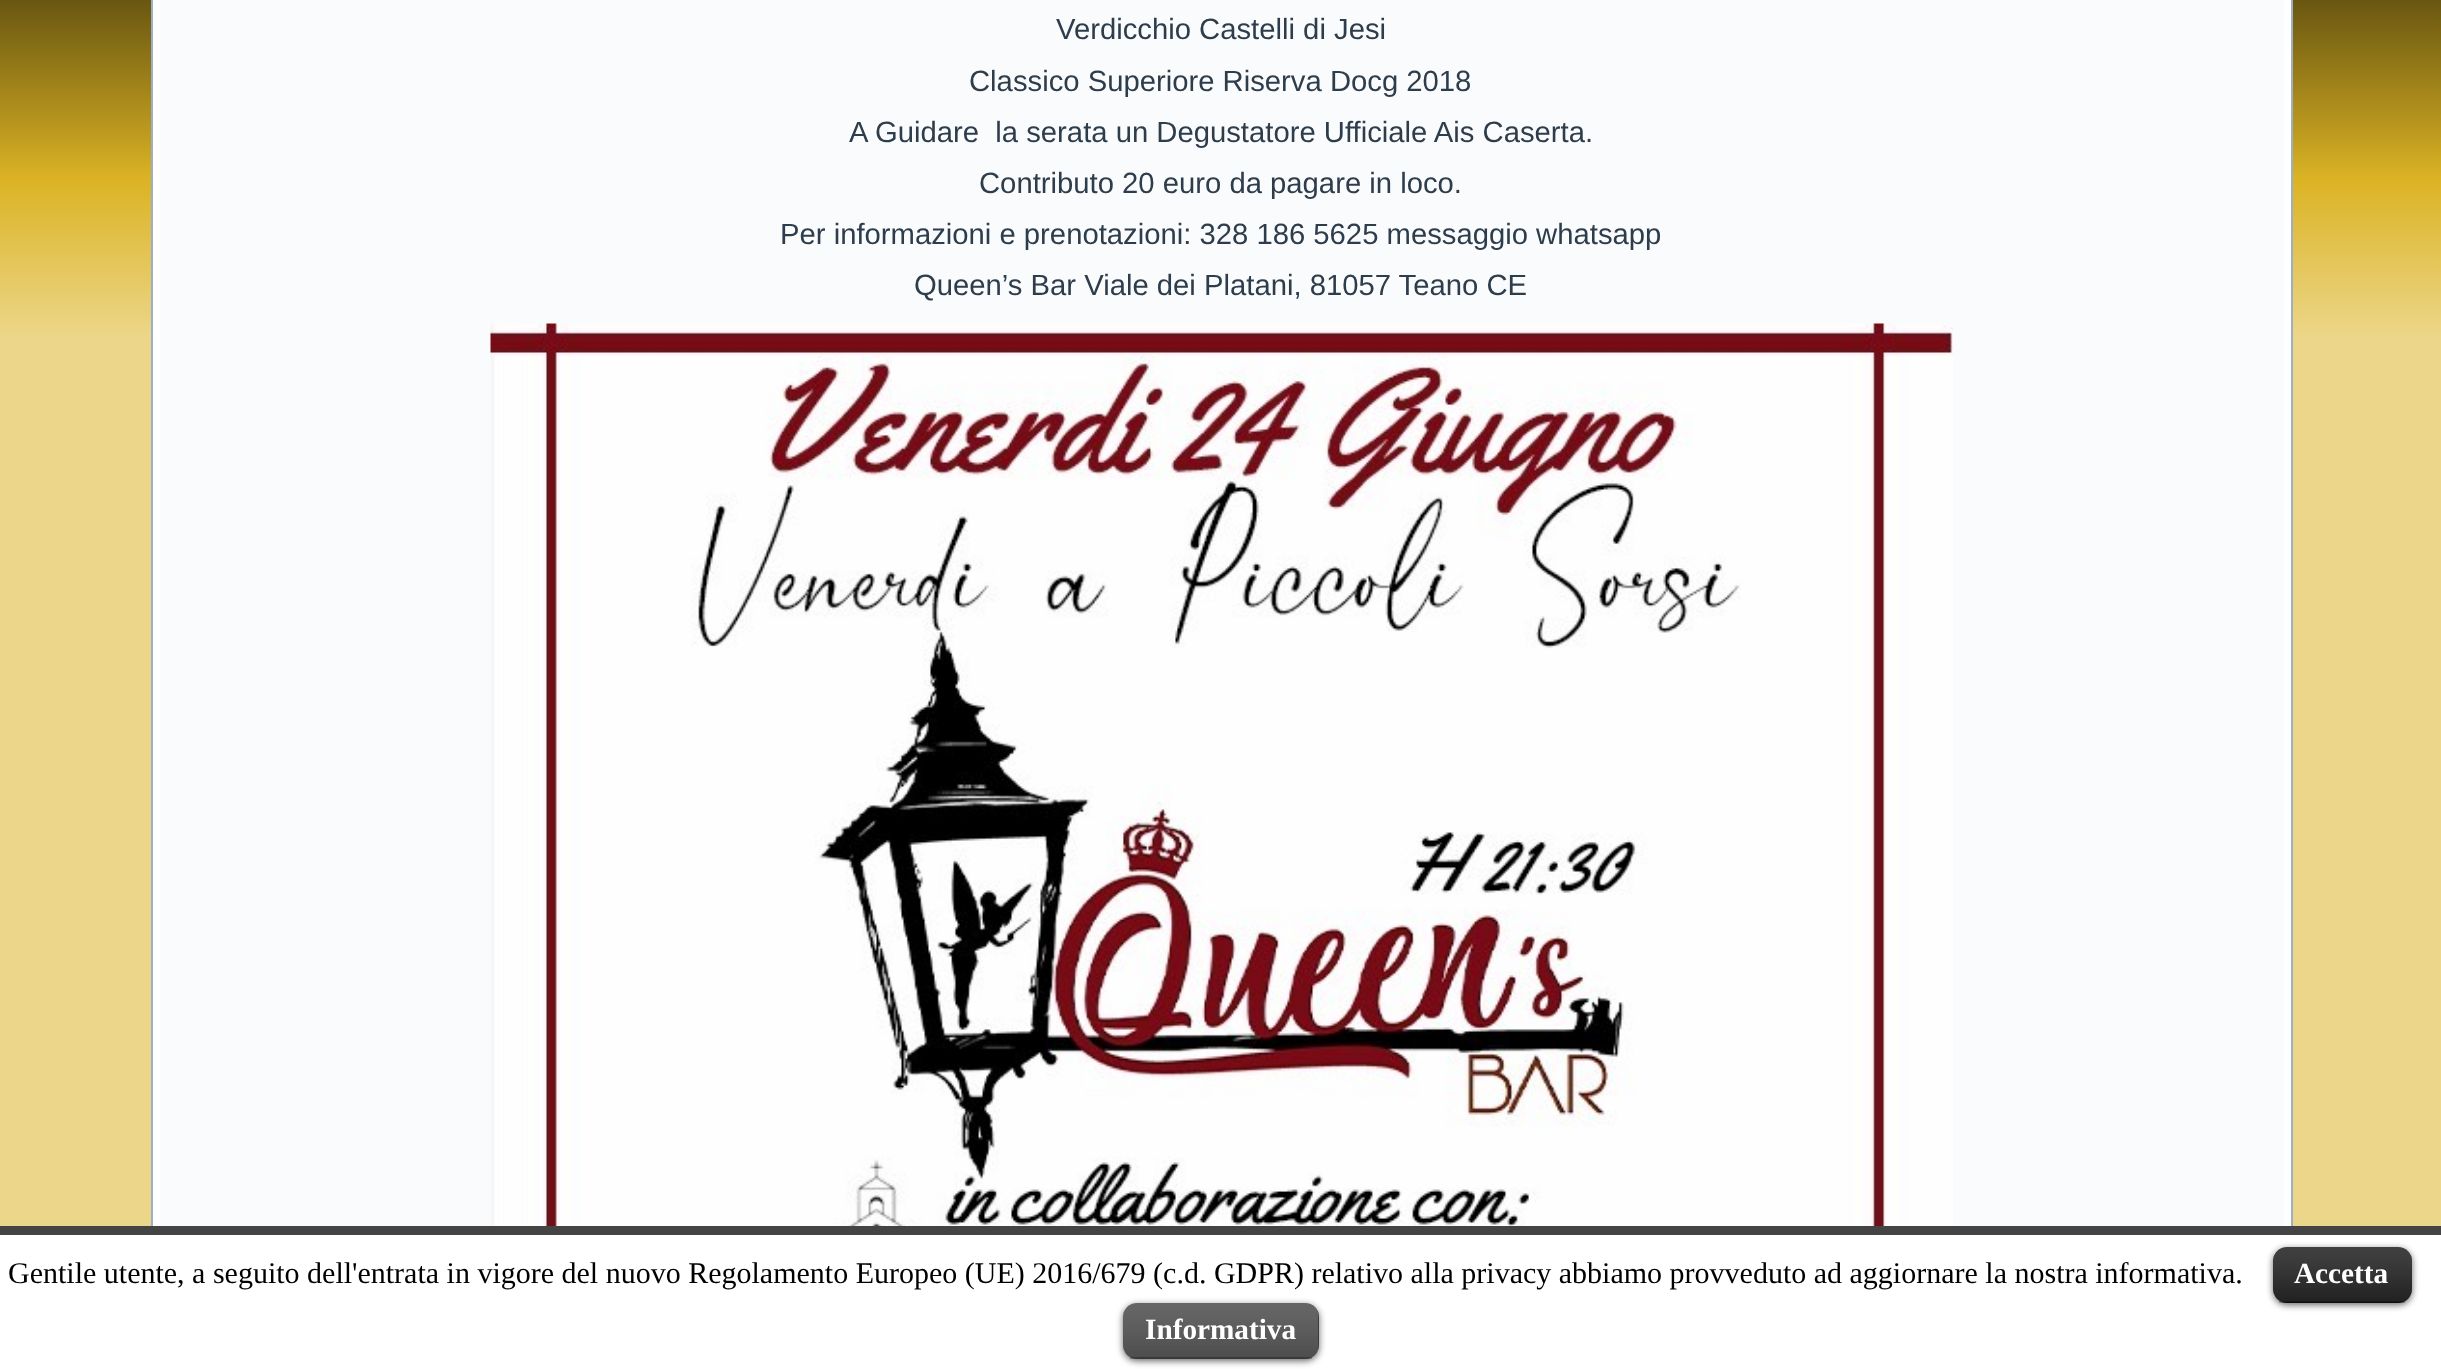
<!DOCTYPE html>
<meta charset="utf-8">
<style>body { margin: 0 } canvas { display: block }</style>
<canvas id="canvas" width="2441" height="1369"></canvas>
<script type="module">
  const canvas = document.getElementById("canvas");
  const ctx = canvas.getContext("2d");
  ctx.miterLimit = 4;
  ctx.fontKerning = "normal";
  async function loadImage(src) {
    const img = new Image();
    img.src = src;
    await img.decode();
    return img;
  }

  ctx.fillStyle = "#ffffff";
  ctx.fillRect(0, 0, 2441, 1369);
  ctx.drawImage(await loadImage("img1.png"), 0, 0, 2441, 1226);
  ctx.fillRect(153, 0, 2138, 1226);
  ctx.strokeStyle = "#9cafc4";
  ctx.lineWidth = 2;
  ctx.strokeRect(152, -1, 2140, 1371);
  ctx.fillStyle = "#fafbfc";
  ctx.fillRect(160, 0, 2124, 1226);
  ctx.font = "29.25px Liberation Sans";
  ctx.fillStyle = "#2e3d4c";
  ctx.fillText("Verdicchio Castelli di Jesi", 1056, 39);
  ctx.fillText("Classico Superiore Riserva Docg 2018", 969, 91);
  ctx.fillText("A Guidare  la serata un Degustatore Ufficiale Ais Caserta.", 849, 142);
  ctx.fillText("Contributo 20 euro da pagare in loco.", 979, 193);
  ctx.fillText("Per informazioni e prenotazioni: 328 186 5625 messaggio whatsapp", 780, 244);
  ctx.fillText("Queen’s Bar Viale dei Platani, 81057 Teano CE", 914, 295);
  ctx.drawImage(await loadImage("img2.png"), 490, 323, 1463, 903);
  ctx.fillStyle = "#ffffff";
  ctx.fillRect(151, 1235, 2142, 134);
  ctx.fillStyle = "#444444";
  ctx.fillRect(0, 1226, 2441, 9);
  ctx.font = "30px Liberation Serif";
  ctx.fillStyle = "#000000";
  ctx.fillText("Gentile utente, a seguito dell'entrata in vigore del nuovo Regolamento Europeo (UE) 2016/679 (c.d. GDPR) relativo alla privacy abbiamo provveduto ad aggiornare la nostra informativa.", 8, 1283);
  ctx.fillStyle = "rgba(0, 0, 0, 0.6)";
  ctx.filter = "blur(3.5px)";
  ctx.beginPath();
  ctx.roundRect(2273, 1249, 139, 56, 14);
  ctx.fill();
  ctx.filter = "none";
  ctx.fillStyle = "#000000";
  ctx.beginPath();
  ctx.roundRect(2273, 1247, 139, 56, 14);
  ctx.fill();
  ctx.drawImage(await loadImage("img3.png"), 2273, 1247, 139, 56);
  ctx.fillStyle = "rgba(0, 0, 0, 0.25)";
  ctx.fillRect(2279, 1301, 126, 2);
  ctx.font = "bold 29.25px Liberation Serif";
  ctx.fillStyle = "#ffffff";
  ctx.fillText("Accetta", 2294, 1283);
  ctx.fillStyle = "rgba(0, 0, 0, 0.6)";
  ctx.filter = "blur(3.5px)";
  ctx.beginPath();
  ctx.roundRect(1123, 1305, 196, 56, 14);
  ctx.fill();
  ctx.filter = "none";
  ctx.fillStyle = "#333333";
  ctx.beginPath();
  ctx.roundRect(1123, 1303, 196, 56, 14);
  ctx.fill();
  ctx.drawImage(await loadImage("img4.png"), 1123, 1303, 196, 56);
  ctx.fillStyle = "rgba(0, 0, 0, 0.25)";
  ctx.fillRect(1130, 1357, 182, 2);
  ctx.fillStyle = "#ffffff";
  ctx.fillText("Informativa", 1145, 1339);
</script>
